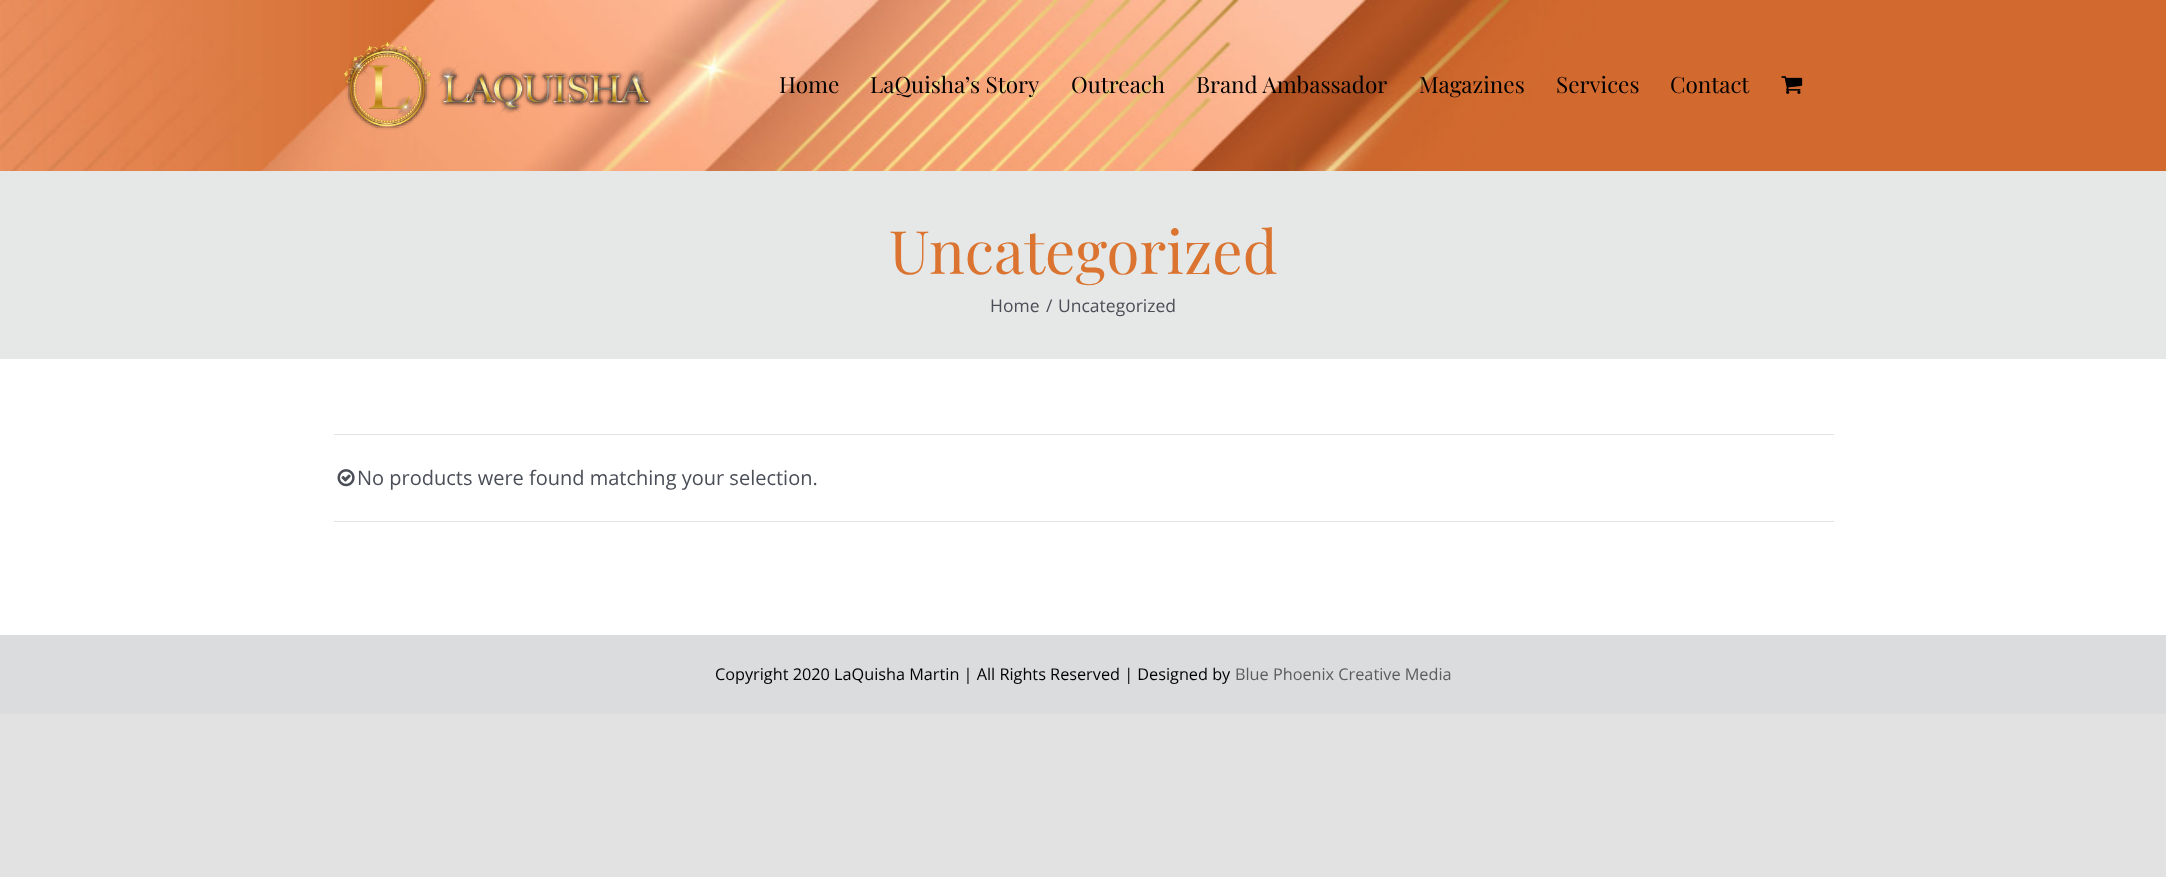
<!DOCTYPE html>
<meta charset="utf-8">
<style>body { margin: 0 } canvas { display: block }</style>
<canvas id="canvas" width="2166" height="877"></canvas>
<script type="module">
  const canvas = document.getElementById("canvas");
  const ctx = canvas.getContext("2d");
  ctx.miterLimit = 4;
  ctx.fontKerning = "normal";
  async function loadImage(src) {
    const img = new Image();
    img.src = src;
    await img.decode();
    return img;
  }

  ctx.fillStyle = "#e2e2e2";
  ctx.fillRect(0, 0, 2166, 877);
  ctx.fillStyle = "#ffffff";
  ctx.fillRect(0, 359, 2166, 276);
  ctx.drawImage(await loadImage("img1.png"), 0, 0, 2166, 171);
  ctx.drawImage(await loadImage("img2.png"), 344, 42, 309, 88);
  ctx.font = "22.5px Playfair Display";
  ctx.fillStyle = "#000000";
  ctx.fillText("Home", 779, 93);
  ctx.fillText("LaQuisha’s Story", 870, 93);
  ctx.fillText("Outreach", 1071, 93);
  ctx.fillText("Brand Ambassador", 1196, 93);
  ctx.fillText("Magazines", 1419, 93);
  ctx.fillText("Services", 1556, 93);
  ctx.fillText("Contact", 1670, 93);
  ctx.drawImage(await loadImage("img3.png"), 1781, 76, 22, 18);
  ctx.fillStyle = "#e5e8e6";
  ctx.fillRect(0, 171, 2166, 188);
  ctx.font = "60px Playfair Display";
  ctx.fillStyle = "#db7430";
  ctx.fillText("Uncategorized", 889, 274);
  ctx.font = "17.5px Open Sans";
  ctx.fillStyle = "#4a4e57";
  ctx.fillText("Home", 990, 312);
  ctx.fillText("/", 1046, 312);
  ctx.fillText("Uncategorized", 1058, 312);
  ctx.fillStyle = "#e2e2e2";
  ctx.fillRect(334, 434, 1500, 1);
  ctx.fillRect(334, 521, 1500, 1);
  ctx.drawImage(await loadImage("img4.png"), 337, 469, 18, 18);
  ctx.font = "20px Open Sans";
  ctx.fillStyle = "#4a4e57";
  ctx.fillText("No products were found matching your selection.", 357, 485);
  ctx.fillStyle = "#dbdcde";
  ctx.fillRect(0, 635, 2166, 79);
  ctx.font = "16.25px Open Sans";
  ctx.fillStyle = "#000000";
  ctx.fillText("Copyright 2020 LaQuisha Martin | All Rights Reserved | Designed by", 715, 680);
  ctx.fillStyle = "#5c5c5d";
  ctx.fillText("Blue Phoenix Creative Media", 1235, 680);
</script>
